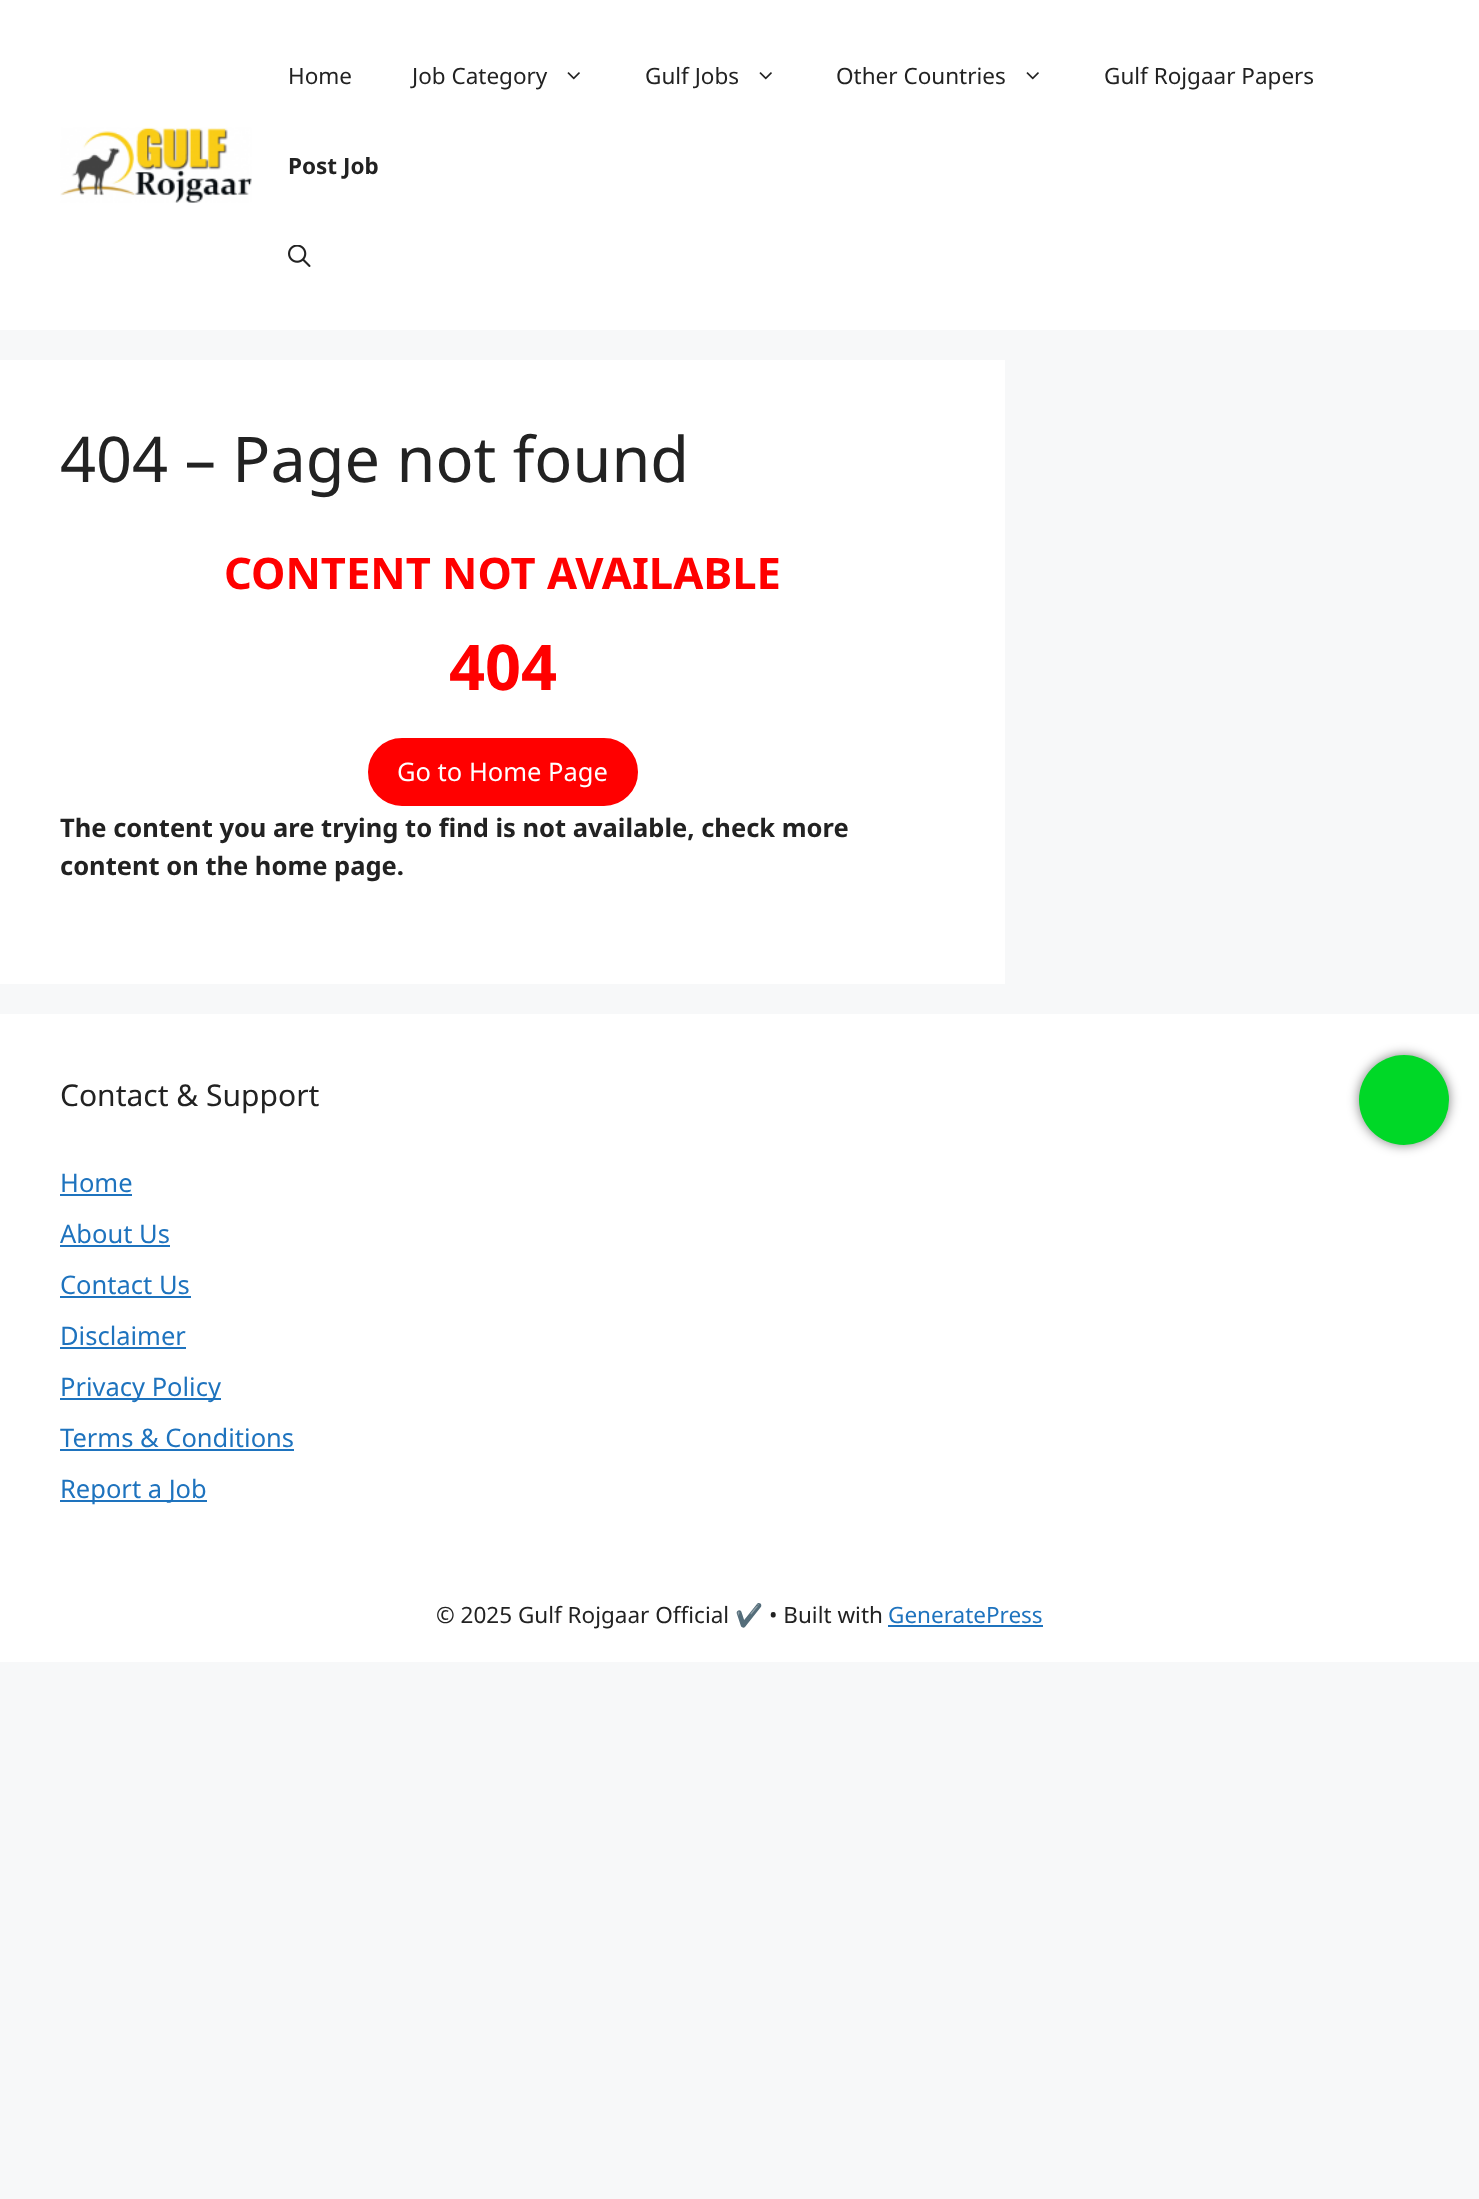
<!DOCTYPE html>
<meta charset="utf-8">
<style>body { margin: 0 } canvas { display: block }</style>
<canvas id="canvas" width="1479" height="2199"></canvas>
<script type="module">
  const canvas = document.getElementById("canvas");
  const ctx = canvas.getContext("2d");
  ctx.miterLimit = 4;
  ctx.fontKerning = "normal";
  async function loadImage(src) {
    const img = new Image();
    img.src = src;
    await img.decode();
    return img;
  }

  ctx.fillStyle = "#f7f8f9";
  ctx.fillRect(0, 0, 1479, 2199);
  ctx.fillStyle = "#ffffff";
  ctx.fillRect(0, 0, 1479, 330);
  ctx.drawImage(await loadImage("img1.png"), 60, 127, 192, 76);
  ctx.font = "22.5px Noto Sans";
  ctx.fillStyle = "#222222";
  ctx.fillText("Home", 288, 84);
  ctx.fillText("Job Category", 412, 84);
  ctx.drawImage(await loadImage("img2.png"), 567, 72, 13, 8);
  ctx.fillText("Gulf Jobs", 645, 84);
  ctx.drawImage(await loadImage("img2.png"), 759, 72, 13, 8);
  ctx.fillText("Other Countries", 836, 84);
  ctx.drawImage(await loadImage("img2.png"), 1026, 72, 13, 8);
  ctx.fillText("Gulf Rojgaar Papers", 1104, 84);
  ctx.font = "bold 22.5px Noto Sans";
  ctx.fillText("Post Job", 288, 174);
  ctx.drawImage(await loadImage("img3.png"), 288, 245, 23, 22);
  ctx.fillStyle = "#ffffff";
  ctx.fillRect(0, 360, 1005, 624);
  ctx.font = "63px Noto Sans";
  ctx.fillStyle = "#222222";
  ctx.fillText("404 – Page not found", 60, 482);
  ctx.font = "bold 43.5px Noto Sans";
  ctx.fillStyle = "#ff0000";
  ctx.fillText("CONTENT NOT AVAILABLE", 224, 589);
  ctx.font = "bold 63px Noto Sans";
  ctx.fillText("404", 449, 690);
  ctx.beginPath();
  ctx.roundRect(366.5, 736.5, 273, 71, 35.5);
  ctx.fill();
  ctx.strokeStyle = "#ffffff";
  ctx.lineWidth = 3;
  ctx.stroke();
  ctx.font = "25.5px Noto Sans";
  ctx.fillStyle = "#ffffff";
  ctx.fillText("Go to Home Page", 397, 781);
  ctx.font = "bold 25.5px Noto Sans";
  ctx.fillStyle = "#222222";
  ctx.fillText("The content you are trying to find is not available, check more", 60, 837);
  ctx.fillText("content on the home page.", 60, 875);
  ctx.fillStyle = "#ffffff";
  ctx.fillRect(0, 1014, 1479, 648);
  ctx.font = "30px Noto Sans";
  ctx.fillStyle = "#222222";
  ctx.fillText("Contact & Support", 60, 1106);
  ctx.font = "25.5px Noto Sans";
  ctx.fillStyle = "#1e73be";
  ctx.fillText("Home", 60, 1192);
  ctx.fillRect(60, 1194, 72, 2);
  ctx.fillText("About Us", 60, 1243);
  ctx.fillRect(60, 1245, 110, 2);
  ctx.fillText("Contact Us", 60, 1294);
  ctx.fillRect(60, 1296, 131, 2);
  ctx.fillText("Disclaimer", 60, 1345);
  ctx.fillRect(60, 1347, 126, 2);
  ctx.fillRect(60, 1398, 161, 2);
  ctx.fillText("Privacy Policy", 60, 1396);
  ctx.fillText("Terms & Conditions", 60, 1447);
  ctx.fillRect(60, 1449, 234, 2);
  ctx.fillRect(60, 1500, 147, 2);
  ctx.fillText("Report a Job", 60, 1498);
  ctx.font = "22.5px Noto Sans";
  ctx.fillStyle = "#222222";
  ctx.fillText("© 2025 Gulf Rojgaar Official", 436, 1623);
  ctx.font = "22.5px Noto Color Emoji";
  ctx.fillText("✔️", 735, 1623);
  ctx.font = "22.5px Noto Sans";
  ctx.fillText("• Built with", 769, 1623);
  ctx.fillStyle = "#1e73be";
  ctx.fillText("GeneratePress", 888, 1623);
  ctx.fillRect(888, 1625, 155, 2);
  ctx.fillStyle = "rgba(0, 0, 0, 0.5)";
  ctx.filter = "blur(6px)";
  ctx.beginPath();
  ctx.roundRect(1359, 1055, 90, 90, 45);
  ctx.fill();
  ctx.filter = "none";
  ctx.fillStyle = "#00d827";
  ctx.beginPath();
  ctx.arc(1404, 1100, 45, 0, Math.PI * 2);
  ctx.fill();
</script>
